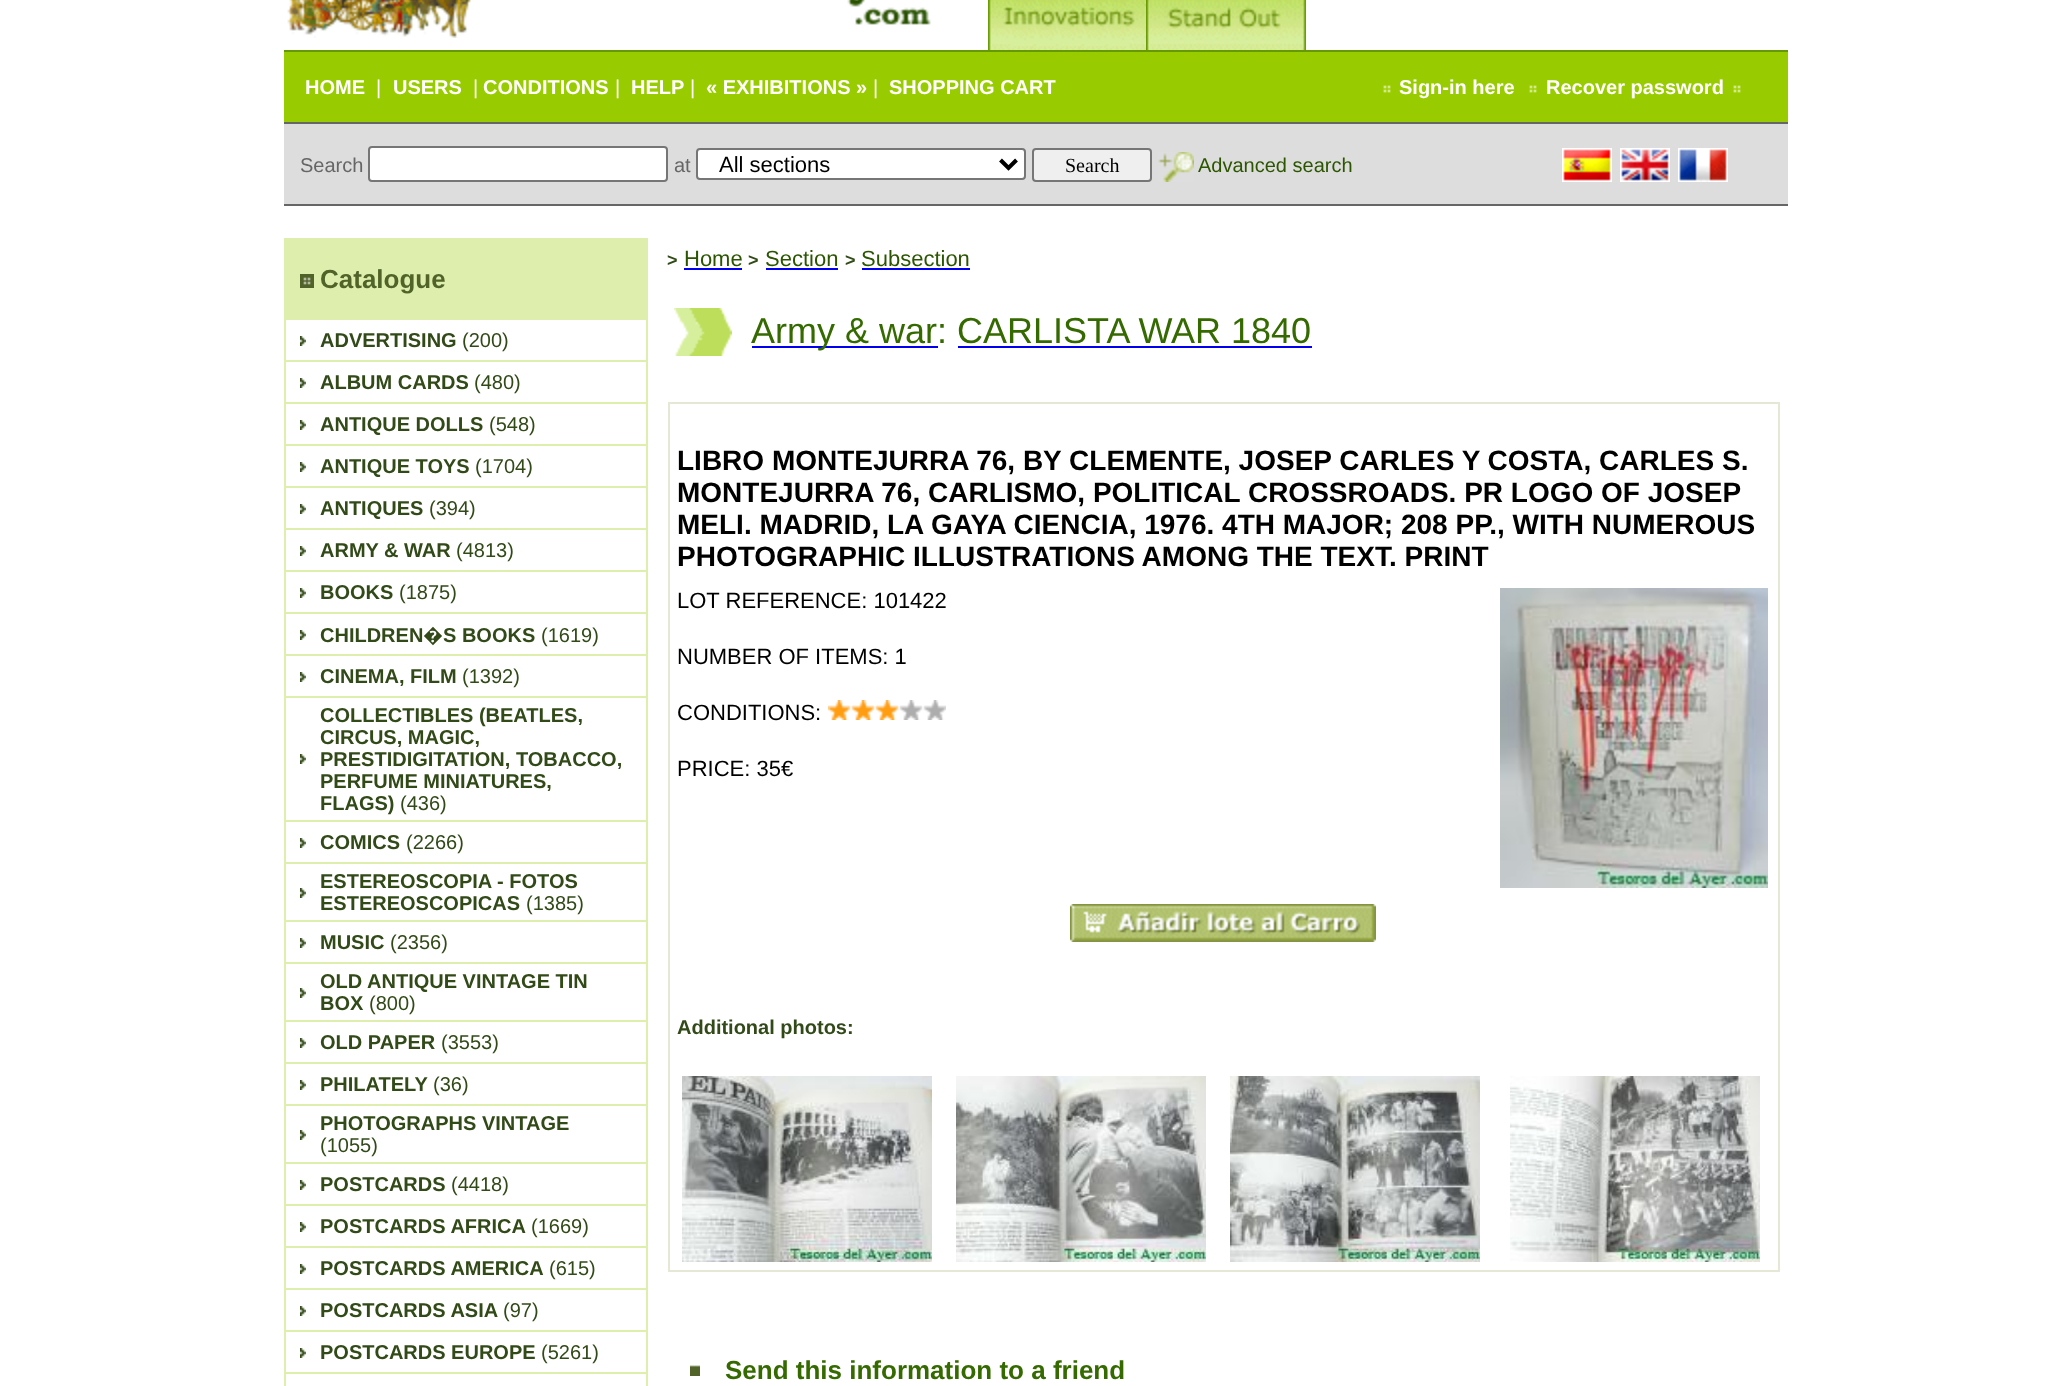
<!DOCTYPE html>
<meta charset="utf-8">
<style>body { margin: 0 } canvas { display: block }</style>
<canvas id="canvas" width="2069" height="1386"></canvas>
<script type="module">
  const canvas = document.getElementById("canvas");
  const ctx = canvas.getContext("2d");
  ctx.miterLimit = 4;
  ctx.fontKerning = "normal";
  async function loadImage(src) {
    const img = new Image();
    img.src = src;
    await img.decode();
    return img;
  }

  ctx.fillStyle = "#ffffff";
  ctx.fillRect(0, 0, 2069, 1386);
  ctx.drawImage(await loadImage("img1.png"), 287, 0, 644, 38);
  ctx.drawImage(await loadImage("img2.png"), 988, 0, 158, 50);
  ctx.drawImage(await loadImage("img3.png"), 1146, 0, 160, 50);
  ctx.fillStyle = "#669900";
  ctx.fillRect(284, 50, 1504, 2);
  ctx.fillStyle = "#99cc00";
  ctx.fillRect(284, 52, 1504, 70);
  ctx.font = "bold 20px Liberation Sans";
  ctx.fillStyle = "#ffffff";
  ctx.fillText("HOME", 305, 94);
  ctx.font = "20px Liberation Sans";
  ctx.fillText("|", 376, 94);
  ctx.font = "bold 20px Liberation Sans";
  ctx.fillText("USERS", 393, 94);
  ctx.font = "20px Liberation Sans";
  ctx.fillText("|", 473, 94);
  ctx.font = "bold 20px Liberation Sans";
  ctx.fillText("CONDITIONS", 483, 94);
  ctx.font = "20px Liberation Sans";
  ctx.fillText("|", 615, 94);
  ctx.font = "bold 20px Liberation Sans";
  ctx.fillText("HELP", 631, 94);
  ctx.font = "20px Liberation Sans";
  ctx.fillText("|", 690, 94);
  ctx.font = "bold 20px Liberation Sans";
  ctx.fillText("« EXHIBITIONS »", 706, 94);
  ctx.font = "20px Liberation Sans";
  ctx.fillText("|", 873, 94);
  ctx.font = "bold 20px Liberation Sans";
  ctx.fillText("SHOPPING CART", 889, 94);
  ctx.drawImage(await loadImage("img4.png"), 1383, 85, 8, 8);
  ctx.fillText("Sign-in here", 1399, 94);
  ctx.drawImage(await loadImage("img4.png"), 1529, 85, 8, 8);
  ctx.fillText("Recover password", 1546, 94);
  ctx.drawImage(await loadImage("img4.png"), 1733, 85, 8, 8);
  ctx.fillStyle = "#666666";
  ctx.fillRect(284, 122, 1504, 2);
  ctx.fillStyle = "#dddddd";
  ctx.fillRect(284, 124, 1504, 80);
  ctx.font = "20px Liberation Sans";
  ctx.fillStyle = "#666666";
  ctx.fillText("Search", 300, 172);
  ctx.fillStyle = "#ffffff";
  ctx.beginPath();
  ctx.roundRect(369, 147, 298, 34, 3);
  ctx.fill();
  ctx.strokeStyle = "#767676";
  ctx.lineWidth = 2;
  ctx.stroke();
  ctx.fillStyle = "#666666";
  ctx.fillText("at", 674, 172);
  ctx.fillStyle = "#ffffff";
  ctx.beginPath();
  ctx.roundRect(697, 149, 328, 30, 3);
  ctx.fill();
  ctx.stroke();
  ctx.beginPath();
  ctx.moveTo(1000.5, 160);
  ctx.lineTo(1008.5, 168);
  ctx.lineTo(1016.5, 160);
  ctx.strokeStyle = "#000000";
  ctx.lineWidth = 4;
  ctx.stroke();
  ctx.font = "22px Liberation Sans";
  ctx.fillStyle = "#000000";
  ctx.fillText("All sections", 719, 172);
  ctx.fillStyle = "#efefef";
  ctx.beginPath();
  ctx.roundRect(1033, 149, 118, 32, 3);
  ctx.fill();
  ctx.strokeStyle = "#767676";
  ctx.lineWidth = 2;
  ctx.stroke();
  ctx.font = "20px Liberation Serif";
  ctx.fillStyle = "#000000";
  ctx.fillText("Search", 1065, 172);
  ctx.drawImage(await loadImage("img5.png"), 1158, 152, 36, 30);
  ctx.font = "20px Liberation Sans";
  ctx.fillStyle = "#2b5500";
  ctx.fillText("Advanced search", 1198, 172);
  ctx.drawImage(await loadImage("img6.png"), 1562, 148, 50, 34);
  ctx.drawImage(await loadImage("img7.png"), 1620, 148, 50, 34);
  ctx.drawImage(await loadImage("img8.png"), 1678, 148, 50, 34);
  ctx.fillStyle = "#666666";
  ctx.fillRect(284, 204, 1504, 2);
  ctx.fillStyle = "#deefad";
  ctx.fillRect(284, 238, 364, 1148);
  ctx.drawImage(await loadImage("img9.png"), 300, 274, 14, 14);
  ctx.font = "bold 26px Liberation Sans";
  ctx.fillStyle = "#526329";
  ctx.fillText("Catalogue", 320, 288);
  ctx.fillStyle = "#ffffff";
  ctx.fillRect(286, 320, 360, 40);
  ctx.drawImage(await loadImage("img10.png"), 300, 336, 6, 10);
  ctx.font = "bold 20px Liberation Sans";
  ctx.fillStyle = "#314a18";
  ctx.fillText("ADVERTISING", 320, 347);
  ctx.font = "20px Liberation Sans";
  ctx.fillText("(200)", 462, 347);
  ctx.fillStyle = "#ffffff";
  ctx.fillRect(286, 362, 360, 40);
  ctx.drawImage(await loadImage("img10.png"), 300, 378, 6, 10);
  ctx.font = "bold 20px Liberation Sans";
  ctx.fillStyle = "#314a18";
  ctx.fillText("ALBUM CARDS", 320, 389);
  ctx.font = "20px Liberation Sans";
  ctx.fillText("(480)", 474, 389);
  ctx.fillStyle = "#ffffff";
  ctx.fillRect(286, 404, 360, 40);
  ctx.drawImage(await loadImage("img10.png"), 300, 420, 6, 10);
  ctx.font = "bold 20px Liberation Sans";
  ctx.fillStyle = "#314a18";
  ctx.fillText("ANTIQUE DOLLS", 320, 431);
  ctx.font = "20px Liberation Sans";
  ctx.fillText("(548)", 489, 431);
  ctx.fillStyle = "#ffffff";
  ctx.fillRect(286, 446, 360, 40);
  ctx.drawImage(await loadImage("img10.png"), 300, 462, 6, 10);
  ctx.font = "bold 20px Liberation Sans";
  ctx.fillStyle = "#314a18";
  ctx.fillText("ANTIQUE TOYS", 320, 473);
  ctx.font = "20px Liberation Sans";
  ctx.fillText("(1704)", 475, 473);
  ctx.fillStyle = "#ffffff";
  ctx.fillRect(286, 488, 360, 40);
  ctx.drawImage(await loadImage("img10.png"), 300, 504, 6, 10);
  ctx.font = "bold 20px Liberation Sans";
  ctx.fillStyle = "#314a18";
  ctx.fillText("ANTIQUES", 320, 515);
  ctx.font = "20px Liberation Sans";
  ctx.fillText("(394)", 429, 515);
  ctx.fillStyle = "#ffffff";
  ctx.fillRect(286, 530, 360, 40);
  ctx.drawImage(await loadImage("img10.png"), 300, 546, 6, 10);
  ctx.font = "bold 20px Liberation Sans";
  ctx.fillStyle = "#314a18";
  ctx.fillText("ARMY & WAR", 320, 557);
  ctx.font = "20px Liberation Sans";
  ctx.fillText("(4813)", 456, 557);
  ctx.fillStyle = "#ffffff";
  ctx.fillRect(286, 572, 360, 40);
  ctx.drawImage(await loadImage("img10.png"), 300, 588, 6, 10);
  ctx.font = "bold 20px Liberation Sans";
  ctx.fillStyle = "#314a18";
  ctx.fillText("BOOKS", 320, 599);
  ctx.font = "20px Liberation Sans";
  ctx.fillText("(1875)", 399, 599);
  ctx.fillStyle = "#ffffff";
  ctx.fillRect(286, 614, 360, 40);
  ctx.drawImage(await loadImage("img10.png"), 300, 630, 6, 10);
  ctx.font = "bold 20px Liberation Sans";
  ctx.fillStyle = "#314a18";
  ctx.fillText("CHILDREN", 320, 642);
  ctx.font = "bold 20px Noto Sans";
  ctx.fillText("�", 423, 642);
  ctx.font = "bold 20px Liberation Sans";
  ctx.fillText("S BOOKS", 443, 642);
  ctx.font = "20px Liberation Sans";
  ctx.fillText("(1619)", 541, 642);
  ctx.fillStyle = "#ffffff";
  ctx.fillRect(286, 656, 360, 40);
  ctx.drawImage(await loadImage("img10.png"), 300, 672, 6, 10);
  ctx.font = "bold 20px Liberation Sans";
  ctx.fillStyle = "#314a18";
  ctx.fillText("CINEMA, FILM", 320, 683);
  ctx.font = "20px Liberation Sans";
  ctx.fillText("(1392)", 462, 683);
  ctx.fillStyle = "#ffffff";
  ctx.fillRect(286, 698, 360, 122);
  ctx.drawImage(await loadImage("img10.png"), 300, 754, 6, 10);
  ctx.font = "bold 20px Liberation Sans";
  ctx.fillStyle = "#314a18";
  ctx.fillText("COLLECTIBLES (BEATLES,", 320, 722);
  ctx.fillText("CIRCUS, MAGIC,", 320, 744);
  ctx.fillText("PRESTIDIGITATION, TOBACCO,", 320, 766);
  ctx.fillText("PERFUME MINIATURES,", 320, 788);
  ctx.fillText("FLAGS)", 320, 810);
  ctx.font = "20px Liberation Sans";
  ctx.fillText("(436)", 400, 810);
  ctx.fillStyle = "#ffffff";
  ctx.fillRect(286, 822, 360, 40);
  ctx.drawImage(await loadImage("img10.png"), 300, 838, 6, 10);
  ctx.font = "bold 20px Liberation Sans";
  ctx.fillStyle = "#314a18";
  ctx.fillText("COMICS", 320, 849);
  ctx.font = "20px Liberation Sans";
  ctx.fillText("(2266)", 406, 849);
  ctx.fillStyle = "#ffffff";
  ctx.fillRect(286, 864, 360, 56);
  ctx.drawImage(await loadImage("img10.png"), 300, 888, 6, 10);
  ctx.font = "bold 20px Liberation Sans";
  ctx.fillStyle = "#314a18";
  ctx.fillText("ESTEREOSCOPIA - FOTOS", 320, 888);
  ctx.fillText("ESTEREOSCOPICAS", 320, 910);
  ctx.font = "20px Liberation Sans";
  ctx.fillText("(1385)", 526, 910);
  ctx.fillStyle = "#ffffff";
  ctx.fillRect(286, 922, 360, 40);
  ctx.drawImage(await loadImage("img10.png"), 300, 938, 6, 10);
  ctx.font = "bold 20px Liberation Sans";
  ctx.fillStyle = "#314a18";
  ctx.fillText("MUSIC", 320, 949);
  ctx.font = "20px Liberation Sans";
  ctx.fillText("(2356)", 390, 949);
  ctx.fillStyle = "#ffffff";
  ctx.fillRect(286, 964, 360, 56);
  ctx.drawImage(await loadImage("img10.png"), 300, 988, 6, 10);
  ctx.font = "bold 20px Liberation Sans";
  ctx.fillStyle = "#314a18";
  ctx.fillText("OLD ANTIQUE VINTAGE TIN", 320, 988);
  ctx.fillText("BOX", 320, 1010);
  ctx.font = "20px Liberation Sans";
  ctx.fillText("(800)", 369, 1010);
  ctx.fillStyle = "#ffffff";
  ctx.fillRect(286, 1022, 360, 40);
  ctx.drawImage(await loadImage("img10.png"), 300, 1038, 6, 10);
  ctx.font = "bold 20px Liberation Sans";
  ctx.fillStyle = "#314a18";
  ctx.fillText("OLD PAPER", 320, 1049);
  ctx.font = "20px Liberation Sans";
  ctx.fillText("(3553)", 441, 1049);
  ctx.fillStyle = "#ffffff";
  ctx.fillRect(286, 1064, 360, 40);
  ctx.drawImage(await loadImage("img10.png"), 300, 1080, 6, 10);
  ctx.font = "bold 20px Liberation Sans";
  ctx.fillStyle = "#314a18";
  ctx.fillText("PHILATELY", 320, 1091);
  ctx.font = "20px Liberation Sans";
  ctx.fillText("(36)", 433, 1091);
  ctx.fillStyle = "#ffffff";
  ctx.fillRect(286, 1106, 360, 56);
  ctx.drawImage(await loadImage("img10.png"), 300, 1130, 6, 10);
  ctx.font = "bold 20px Liberation Sans";
  ctx.fillStyle = "#314a18";
  ctx.fillText("PHOTOGRAPHS VINTAGE", 320, 1130);
  ctx.font = "20px Liberation Sans";
  ctx.fillText("(1055)", 320, 1152);
  ctx.fillStyle = "#ffffff";
  ctx.fillRect(286, 1164, 360, 40);
  ctx.drawImage(await loadImage("img10.png"), 300, 1180, 6, 10);
  ctx.font = "bold 20px Liberation Sans";
  ctx.fillStyle = "#314a18";
  ctx.fillText("POSTCARDS", 320, 1191);
  ctx.font = "20px Liberation Sans";
  ctx.fillText("(4418)", 451, 1191);
  ctx.fillStyle = "#ffffff";
  ctx.fillRect(286, 1206, 360, 40);
  ctx.drawImage(await loadImage("img10.png"), 300, 1222, 6, 10);
  ctx.font = "bold 20px Liberation Sans";
  ctx.fillStyle = "#314a18";
  ctx.fillText("POSTCARDS AFRICA", 320, 1233);
  ctx.font = "20px Liberation Sans";
  ctx.fillText("(1669)", 531, 1233);
  ctx.fillStyle = "#ffffff";
  ctx.fillRect(286, 1248, 360, 40);
  ctx.drawImage(await loadImage("img10.png"), 300, 1264, 6, 10);
  ctx.font = "bold 20px Liberation Sans";
  ctx.fillStyle = "#314a18";
  ctx.fillText("POSTCARDS AMERICA", 320, 1275);
  ctx.font = "20px Liberation Sans";
  ctx.fillText("(615)", 549, 1275);
  ctx.fillStyle = "#ffffff";
  ctx.fillRect(286, 1290, 360, 40);
  ctx.drawImage(await loadImage("img10.png"), 300, 1306, 6, 10);
  ctx.font = "bold 20px Liberation Sans";
  ctx.fillStyle = "#314a18";
  ctx.fillText("POSTCARDS ASIA", 320, 1317);
  ctx.font = "20px Liberation Sans";
  ctx.fillText("(97)", 503, 1317);
  ctx.fillStyle = "#ffffff";
  ctx.fillRect(286, 1332, 360, 40);
  ctx.drawImage(await loadImage("img10.png"), 300, 1348, 6, 10);
  ctx.font = "bold 20px Liberation Sans";
  ctx.fillStyle = "#314a18";
  ctx.fillText("POSTCARDS EUROPE", 320, 1359);
  ctx.font = "20px Liberation Sans";
  ctx.fillText("(5261)", 541, 1359);
  ctx.fillStyle = "#ffffff";
  ctx.fillRect(286, 1374, 360, 12);
  ctx.font = "bold 18px Liberation Sans";
  ctx.fillStyle = "#314a18";
  ctx.fillText(">", 667, 266);
  ctx.font = "22px Liberation Sans";
  ctx.fillStyle = "#2b5500";
  ctx.fillText("Home", 684, 266);
  ctx.fillStyle = "#0000ee";
  ctx.fillRect(684, 268, 58, 2);
  ctx.font = "bold 18px Liberation Sans";
  ctx.fillStyle = "#314a18";
  ctx.fillText(">", 748, 266);
  ctx.font = "22px Liberation Sans";
  ctx.fillStyle = "#2b5500";
  ctx.fillText("Section", 765, 266);
  ctx.fillStyle = "#0000ee";
  ctx.fillRect(766, 268, 72, 2);
  ctx.font = "bold 18px Liberation Sans";
  ctx.fillStyle = "#314a18";
  ctx.fillText(">", 845, 266);
  ctx.font = "22px Liberation Sans";
  ctx.fillStyle = "#2b5500";
  ctx.fillText("Subsection", 861, 266);
  ctx.fillStyle = "#0000ee";
  ctx.fillRect(862, 268, 108, 2);
  ctx.drawImage(await loadImage("img11.png"), 674, 308, 58, 48);
  ctx.fillRect(752, 346, 186, 2);
  ctx.font = "36px Liberation Sans";
  ctx.fillStyle = "#356a00";
  ctx.fillText("Army & war: CARLISTA WAR 1840", 751, 343);
  ctx.fillStyle = "#0000ee";
  ctx.fillRect(958, 346, 354, 2);
  ctx.fillStyle = "#e7e7d6";
  ctx.fillRect(668, 402, 1112, 870);
  ctx.fillStyle = "#ffffff";
  ctx.fillRect(670, 404, 1108, 866);
  ctx.font = "bold 28px Liberation Sans";
  ctx.fillStyle = "#000000";
  ctx.fillText("LIBRO MONTEJURRA 76, BY CLEMENTE, JOSEP CARLES Y COSTA, CARLES S.", 677, 470);
  ctx.fillText("MONTEJURRA 76, CARLISMO, POLITICAL CROSSROADS. PR LOGO OF JOSEP", 677, 502);
  ctx.fillText("MELI. MADRID, LA GAYA CIENCIA, 1976. 4TH MAJOR; 208 PP., WITH NUMEROUS", 677, 534);
  ctx.fillText("PHOTOGRAPHIC ILLUSTRATIONS AMONG THE TEXT. PRINT", 677, 566);
  ctx.font = "22px Liberation Sans";
  ctx.fillText("LOT REFERENCE: 101422", 677, 608);
  ctx.fillText("NUMBER OF ITEMS: 1", 677, 664);
  ctx.fillText("CONDITIONS:", 677, 720);
  ctx.drawImage(await loadImage("img12.png"), 828, 700, 118, 20);
  ctx.fillText("PRICE: 35€", 677, 776);
  ctx.drawImage(await loadImage("img13.png"), 1500, 588, 268, 300);
  ctx.drawImage(await loadImage("img14.png"), 1070, 904, 306, 38);
  ctx.font = "bold 20px Liberation Sans";
  ctx.fillStyle = "#314a18";
  ctx.fillText("Additional photos:", 677, 1034);
  ctx.drawImage(await loadImage("img15.png"), 682, 1076, 250, 186);
  ctx.drawImage(await loadImage("img16.png"), 956, 1076, 250, 186);
  ctx.drawImage(await loadImage("img17.png"), 1230, 1076, 250, 186);
  ctx.drawImage(await loadImage("img18.png"), 1510, 1076, 250, 186);
  ctx.drawImage(await loadImage("img19.png"), 690, 1365, 10, 11);
  ctx.font = "bold 26px Liberation Sans";
  ctx.fillStyle = "#356a00";
  ctx.fillText("Send this information to a friend", 725, 1379);
</script>
